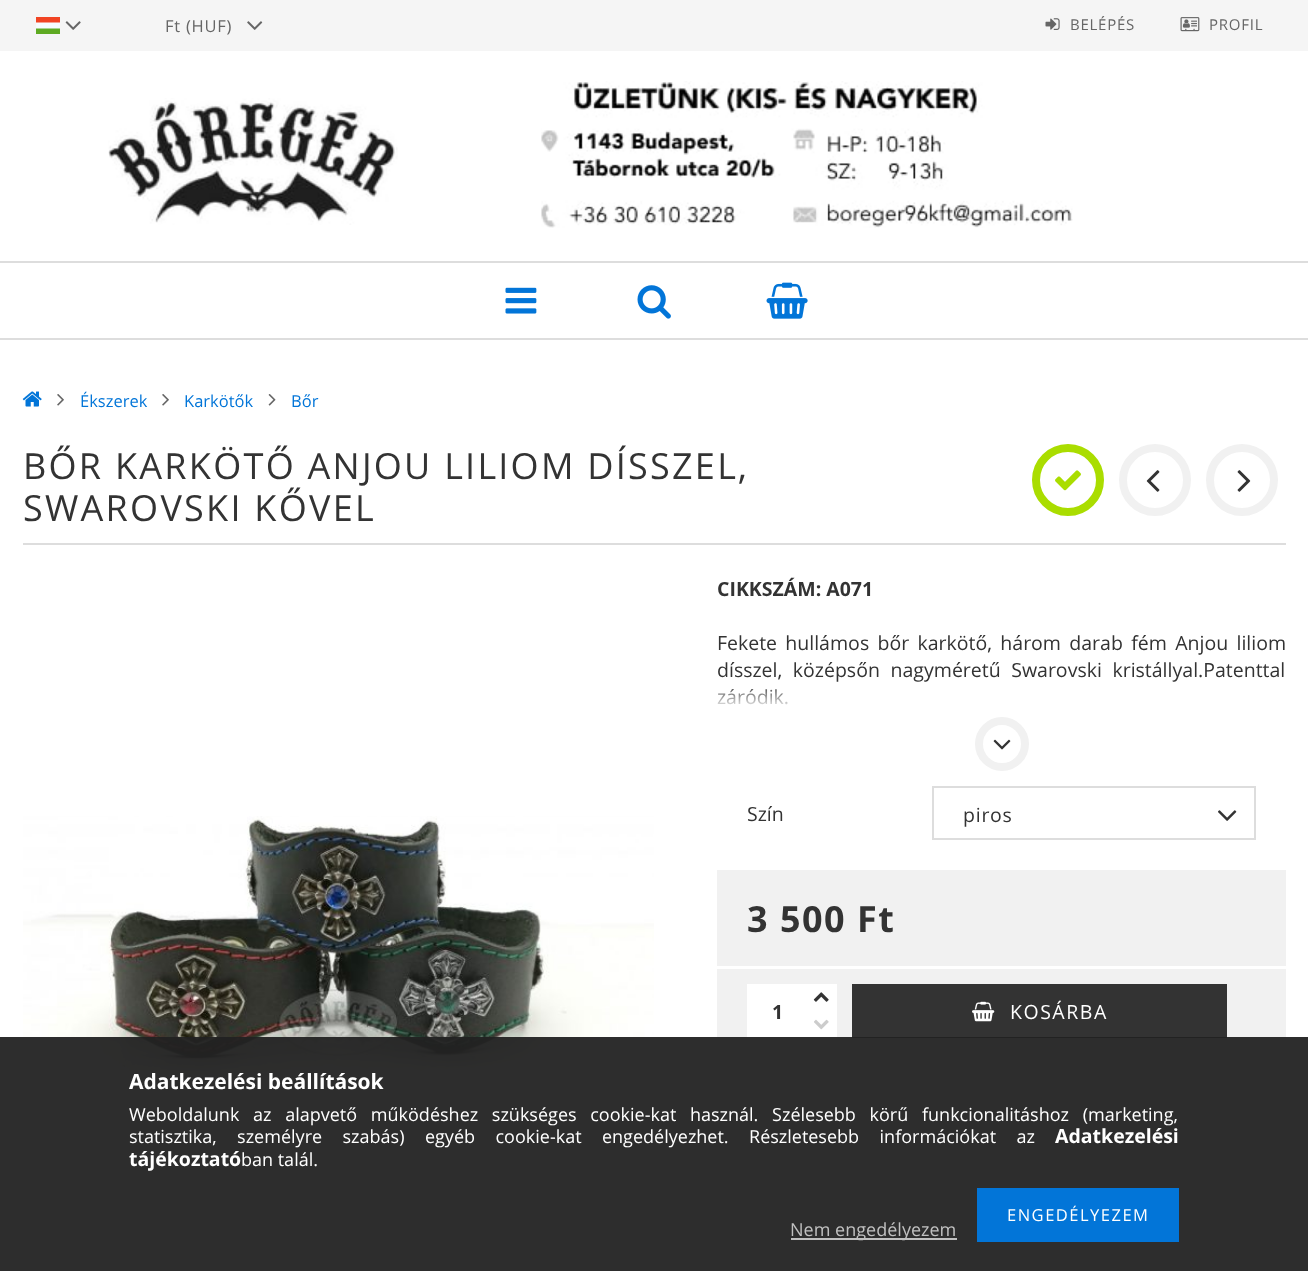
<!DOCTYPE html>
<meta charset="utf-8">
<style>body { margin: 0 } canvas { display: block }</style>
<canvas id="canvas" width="1308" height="1271"></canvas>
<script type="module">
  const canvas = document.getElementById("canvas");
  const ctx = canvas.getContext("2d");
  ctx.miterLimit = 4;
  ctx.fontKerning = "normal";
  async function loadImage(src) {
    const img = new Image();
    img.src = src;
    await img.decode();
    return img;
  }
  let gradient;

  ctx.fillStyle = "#ffffff";
  ctx.fillRect(0, 0, 1308, 1271);
  ctx.fillStyle = "#f5f5f5";
  ctx.fillRect(0, 0, 1308, 51);
  ctx.drawImage(await loadImage("img1.png"), 36, 17, 24, 17);
  ctx.drawImage(await loadImage("img2.png"), 65, 21, 16, 9);
  ctx.letterSpacing = "0.75px";
  ctx.font = "16.5px Open Sans";
  ctx.fillStyle = "#666666";
  ctx.fillText("Ft (HUF)", 165, 32);
  ctx.drawImage(await loadImage("img3.png"), 247, 21, 16, 9);
  ctx.drawImage(await loadImage("img4.png"), 1045, 18, 15, 12);
  ctx.font = "15px Open Sans";
  ctx.fillText("BELÉPÉS", 1070, 30);
  ctx.drawImage(await loadImage("img5.png"), 1180, 17, 20, 15);
  ctx.fillText("PROFIL", 1209, 30);
  ctx.drawImage(await loadImage("img6.png"), 108, 98, 290, 127);
  ctx.drawImage(await loadImage("img7.png"), 541, 81, 532, 147);
  ctx.fillStyle = "#dddddd";
  ctx.fillRect(0, 261, 1308, 2);
  ctx.fillRect(0, 338, 1308, 2);
  ctx.drawImage(await loadImage("img8.png"), 505, 287, 32, 27);
  ctx.drawImage(await loadImage("img9.png"), 637, 285, 34, 34);
  ctx.drawImage(await loadImage("img10.png"), 766, 282, 42, 37);
  ctx.drawImage(await loadImage("img11.png"), 22, 391, 20, 16);
  ctx.drawImage(await loadImage("img12.png"), 57, 394, 7, 12);
  ctx.letterSpacing = "0px";
  ctx.font = "16.5px Open Sans";
  ctx.fillStyle = "#0275d8";
  ctx.fillText("Ékszerek", 80, 407);
  ctx.drawImage(await loadImage("img12.png"), 162, 394, 7, 12);
  ctx.fillText("Karkötők", 184, 407);
  ctx.drawImage(await loadImage("img13.png"), 268, 394, 8, 12);
  ctx.fillText("Bőr", 291, 407);
  ctx.fillStyle = "#dddddd";
  ctx.fillRect(23, 543, 1263, 2);
  ctx.letterSpacing = "2.25px";
  ctx.font = "36px Open Sans";
  ctx.fillStyle = "#333333";
  ctx.fillText("BŐR KARKÖTŐ ANJOU LILIOM DÍSSZEL,", 23, 479);
  ctx.fillText("SWAROVSKI KŐVEL", 23, 521);
  ctx.beginPath();
  ctx.arc(1068, 480, 32, 0, Math.PI * 2);
  ctx.strokeStyle = "#aadd00";
  ctx.lineWidth = 8;
  ctx.stroke();
  ctx.drawImage(await loadImage("img14.png"), 1055, 470, 26, 21);
  ctx.beginPath();
  ctx.arc(1155, 480, 32, 0, Math.PI * 2);
  ctx.strokeStyle = "#f1f1f1";
  ctx.stroke();
  ctx.drawImage(await loadImage("img15.png"), 1146, 470, 14, 22);
  ctx.beginPath();
  ctx.arc(1242, 480, 32, 0, Math.PI * 2);
  ctx.stroke();
  ctx.drawImage(await loadImage("img16.png"), 1237, 470, 14, 22);
  ctx.drawImage(await loadImage("img17.png"), 23, 816, 631, 285);
  ctx.letterSpacing = "0px";
  ctx.font = "bold 19.5px Open Sans";
  ctx.fillText("CIKKSZÁM: A071", 717, 596);
  ctx.wordSpacing = "3.25px";
  ctx.font = "19.5px Open Sans";
  ctx.fillText("Fekete hullámos bőr karkötő, három darab fém Anjou liliom", 717, 650);
  ctx.wordSpacing = "5.5px";
  ctx.fillText("dísszel, középsőn nagyméretű Swarovski kristállyal.Patenttal", 717, 677);
  ctx.wordSpacing = "0px";
  ctx.fillText("záródik.", 717, 704);
  gradient = ctx.createLinearGradient(1001, 683, 1001, 710);
  gradient.addColorStop(0, "rgba(255, 255, 255, 0)");
  gradient.addColorStop(1, "#ffffff");
  ctx.fillStyle = gradient;
  ctx.fillRect(717, 689, 71, 16);
  ctx.beginPath();
  ctx.arc(1002, 744, 23, 0, Math.PI * 2);
  ctx.stroke();
  ctx.drawImage(await loadImage("img18.png"), 993, 739, 18, 11);
  ctx.fillStyle = "#333333";
  ctx.fillText("Szín", 747, 821);
  ctx.strokeStyle = "#dddddd";
  ctx.lineWidth = 2;
  ctx.strokeRect(933, 787, 322, 52);
  ctx.letterSpacing = "0.75px";
  ctx.fillText("piros", 963, 822);
  ctx.drawImage(await loadImage("img19.png"), 1218, 810, 19, 11);
  ctx.fillStyle = "#f1f1f1";
  ctx.fillRect(717, 870, 569, 96);
  ctx.letterSpacing = "1.5px";
  ctx.font = "bold 36px Open Sans";
  ctx.fillStyle = "#333333";
  ctx.fillText("3 500 Ft", 747, 932);
  ctx.fillStyle = "#f1f1f1";
  ctx.fillRect(717, 969, 569, 84);
  ctx.fillStyle = "#ffffff";
  ctx.fillRect(747, 984, 60, 54);
  ctx.letterSpacing = "0px";
  ctx.font = "bold 19.5px Open Sans";
  ctx.fillStyle = "#333333";
  ctx.fillText("1", 772, 1019);
  ctx.fillStyle = "#ffffff";
  ctx.fillRect(807, 984, 30, 54);
  ctx.drawImage(await loadImage("img20.png"), 813, 992, 16, 10);
  ctx.drawImage(await loadImage("img21.png"), 814, 1019, 15, 11);
  ctx.fillStyle = "#333333";
  ctx.fillRect(852, 984, 375, 54);
  ctx.drawImage(await loadImage("img22.png"), 972, 1001, 23, 21);
  ctx.letterSpacing = "1.5px";
  ctx.font = "19.5px Open Sans";
  ctx.fillStyle = "#ffffff";
  ctx.fillText("KOSÁRBA", 1010, 1019);
  ctx.fillStyle = "rgba(34, 34, 34, 0.95)";
  ctx.fillRect(0, 1037, 1308, 234);
  ctx.letterSpacing = "0px";
  ctx.font = "bold 21px Open Sans";
  ctx.fillStyle = "#ffffff";
  ctx.fillText("Adatkezelési beállítások", 129, 1089);
  ctx.wordSpacing = "9px";
  ctx.font = "18px Open Sans";
  ctx.fillText("Weboldalunk az alapvető működéshez szükséges cookie-kat használ. Szélesebb körű funkcionalitáshoz (marketing,", 129, 1121);
  ctx.wordSpacing = "15.75px";
  ctx.fillText("statisztika, személyre szabás) egyéb cookie-kat engedélyezhet. Részletesebb információkat az", 129, 1143);
  ctx.wordSpacing = "0px";
  ctx.font = "bold 19.5px Open Sans";
  ctx.fillText("Adatkezelési", 1055, 1143);
  ctx.fillText("tájékoztató", 129, 1166);
  ctx.font = "18px Open Sans";
  ctx.fillText("ban talál.", 241, 1166);
  ctx.fillStyle = "#0275d8";
  ctx.fillRect(977, 1188, 202, 54);
  ctx.letterSpacing = "1.5px";
  ctx.font = "16.5px Open Sans";
  ctx.fillStyle = "#ffffff";
  ctx.fillText("ENGEDÉLYEZEM", 1007, 1221);
  ctx.fillStyle = "#c0c0c0";
  ctx.fillRect(791, 1238, 166, 2);
  ctx.letterSpacing = "0px";
  ctx.font = "18px Open Sans";
  ctx.fillText("Nem engedélyezem", 790, 1236);
</script>
